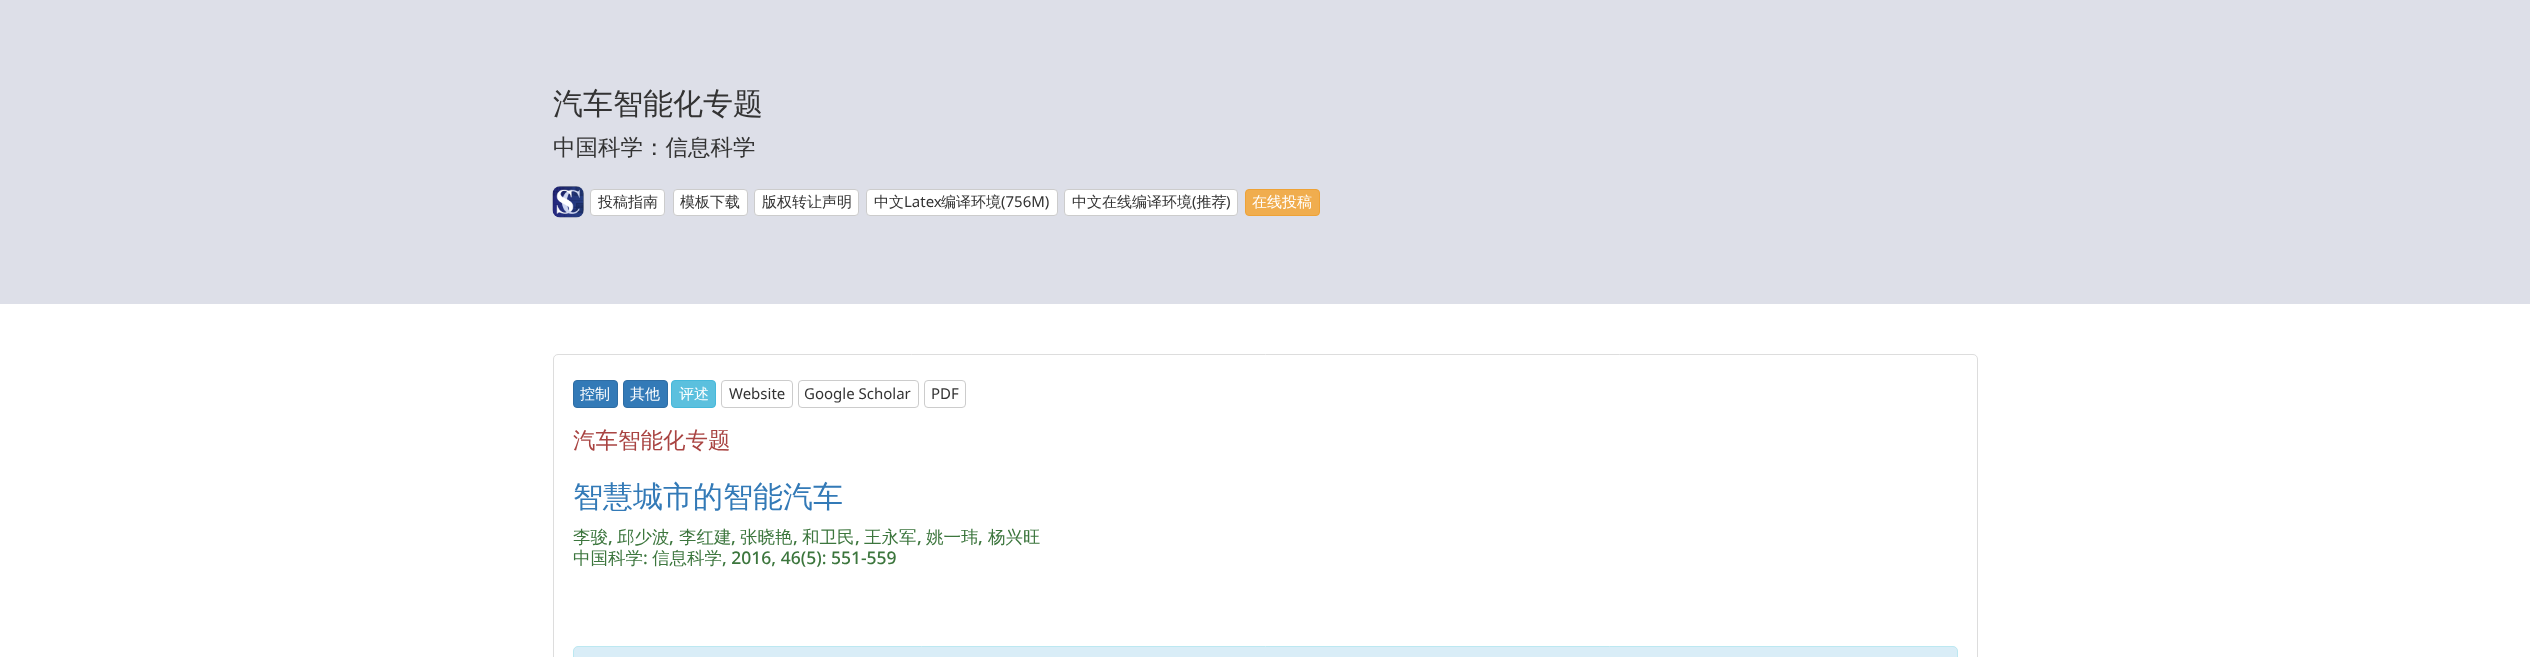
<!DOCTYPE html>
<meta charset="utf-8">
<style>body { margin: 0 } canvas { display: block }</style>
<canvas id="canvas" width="2530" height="657"></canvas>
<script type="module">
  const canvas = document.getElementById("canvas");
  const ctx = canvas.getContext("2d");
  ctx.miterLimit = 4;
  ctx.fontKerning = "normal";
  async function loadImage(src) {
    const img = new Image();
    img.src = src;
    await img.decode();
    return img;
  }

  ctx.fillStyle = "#ffffff";
  ctx.fillRect(0, 0, 2530, 657);
  ctx.fillStyle = "#dddfe8";
  ctx.fillRect(0, 0, 2530, 304);
  ctx.font = "500 30px WenQuanYi Zen Hei";
  ctx.fillStyle = "#333333";
  ctx.fillText("汽车智能化专题", 553, 114);
  ctx.font = "500 22.5px WenQuanYi Zen Hei";
  ctx.fillText("中国科学：信息科学", 553, 155);
  ctx.drawImage(await loadImage("img1.png"), 552, 186, 32, 32);
  ctx.fillStyle = "#ffffff";
  ctx.beginPath();
  ctx.roundRect(590.5, 189.5, 74, 26, 3.5);
  ctx.fill();
  ctx.strokeStyle = "#cccccc";
  ctx.stroke();
  ctx.font = "500 15px WenQuanYi Zen Hei";
  ctx.fillStyle = "#333333";
  ctx.fillText("投稿指南", 598, 207);
  ctx.fillStyle = "#ffffff";
  ctx.beginPath();
  ctx.roundRect(673.5, 189.5, 74, 26, 3.5);
  ctx.fill();
  ctx.stroke();
  ctx.fillStyle = "#333333";
  ctx.fillText("模板下载", 680, 207);
  ctx.fillStyle = "#ffffff";
  ctx.beginPath();
  ctx.roundRect(754.5, 189.5, 104, 26, 3.5);
  ctx.fill();
  ctx.stroke();
  ctx.fillStyle = "#333333";
  ctx.fillText("版权转让声明", 762, 207);
  ctx.fillStyle = "#ffffff";
  ctx.beginPath();
  ctx.roundRect(866.5, 189.5, 191, 26, 3.5);
  ctx.fill();
  ctx.stroke();
  ctx.fillStyle = "#333333";
  ctx.fillText("中文", 874, 207);
  ctx.font = "15px Noto Sans";
  ctx.fillText("Latex", 904, 207);
  ctx.font = "500 15px WenQuanYi Zen Hei";
  ctx.fillText("编译环境", 941, 207);
  ctx.font = "15px Noto Sans";
  ctx.fillText("(756M)", 1001, 207);
  ctx.fillStyle = "#ffffff";
  ctx.beginPath();
  ctx.roundRect(1064.5, 189.5, 173, 26, 3.5);
  ctx.fill();
  ctx.stroke();
  ctx.font = "500 15px WenQuanYi Zen Hei";
  ctx.fillStyle = "#333333";
  ctx.fillText("中文在线编译环境 推荐", 1072, 207);
  ctx.font = "15px Noto Sans";
  ctx.fillText("(", 1192, 207);
  ctx.fillText(")", 1226, 207);
  ctx.fillStyle = "#f0ad4e";
  ctx.beginPath();
  ctx.roundRect(1245.5, 189.5, 74, 26, 3.5);
  ctx.fill();
  ctx.strokeStyle = "#eea236";
  ctx.stroke();
  ctx.font = "500 15px WenQuanYi Zen Hei";
  ctx.fillStyle = "#ffffff";
  ctx.fillText("在线投稿", 1252, 207);
  ctx.beginPath();
  ctx.moveTo(558, 354.5);
  ctx.lineTo(1973, 354.5);
  ctx.bezierCurveTo(1975.5, 354.5, 1977.5, 356.5, 1977.5, 359);
  ctx.lineTo(1977.5, 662.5);
  ctx.lineTo(553.5, 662.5);
  ctx.lineTo(553.5, 359);
  ctx.bezierCurveTo(553.5, 356.5, 555.5, 354.5, 558, 354.5);
  ctx.closePath();
  ctx.strokeStyle = "#dddddd";
  ctx.stroke();
  ctx.fillStyle = "#337ab7";
  ctx.beginPath();
  ctx.roundRect(573.5, 380.5, 44, 27, 3.5);
  ctx.fill();
  ctx.strokeStyle = "#2e6da4";
  ctx.stroke();
  ctx.fillStyle = "#ffffff";
  ctx.fillText("控制", 580, 399);
  ctx.fillStyle = "#337ab7";
  ctx.beginPath();
  ctx.roundRect(623.5, 380.5, 44, 27, 3.5);
  ctx.fill();
  ctx.stroke();
  ctx.fillStyle = "#ffffff";
  ctx.fillText("其他", 630, 399);
  ctx.fillStyle = "#5bc0de";
  ctx.beginPath();
  ctx.roundRect(671.5, 380.5, 44, 27, 3.5);
  ctx.fill();
  ctx.strokeStyle = "#46b8da";
  ctx.stroke();
  ctx.fillStyle = "#ffffff";
  ctx.fillText("评述", 679, 399);
  ctx.beginPath();
  ctx.roundRect(721.5, 380.5, 71, 27, 3.5);
  ctx.strokeStyle = "#cccccc";
  ctx.stroke();
  ctx.font = "15px Noto Sans";
  ctx.fillStyle = "#333333";
  ctx.fillText("Website", 729, 399);
  ctx.beginPath();
  ctx.roundRect(798.5, 380.5, 120, 27, 3.5);
  ctx.stroke();
  ctx.fillText("Google Scholar", 804, 399);
  ctx.beginPath();
  ctx.roundRect(924.5, 380.5, 41, 27, 3.5);
  ctx.stroke();
  ctx.fillText("PDF", 931, 399);
  ctx.font = "500 22.5px WenQuanYi Zen Hei";
  ctx.fillStyle = "#a94442";
  ctx.fillText("汽车智能化专题", 573, 448);
  ctx.font = "500 30px WenQuanYi Zen Hei";
  ctx.fillStyle = "#337ab7";
  ctx.fillText("智慧城市的智能汽车", 573, 507);
  ctx.font = "500 17.5px WenQuanYi Zen Hei";
  ctx.fillStyle = "#3c763d";
  ctx.fillText("李骏", 573, 543);
  ctx.font = "500 17.5px Noto Sans";
  ctx.fillText(",", 608, 543);
  ctx.font = "500 17.5px WenQuanYi Zen Hei";
  ctx.fillText("邱少波", 617, 543);
  ctx.font = "500 17.5px Noto Sans";
  ctx.fillText(",", 669, 543);
  ctx.font = "500 17.5px WenQuanYi Zen Hei";
  ctx.fillText("李红建", 679, 543);
  ctx.font = "500 17.5px Noto Sans";
  ctx.fillText(",", 731, 543);
  ctx.font = "500 17.5px WenQuanYi Zen Hei";
  ctx.fillText("张晓艳", 740, 543);
  ctx.font = "500 17.5px Noto Sans";
  ctx.fillText(",", 793, 543);
  ctx.font = "500 17.5px WenQuanYi Zen Hei";
  ctx.fillText("和卫民", 802, 543);
  ctx.font = "500 17.5px Noto Sans";
  ctx.fillText(",", 855, 543);
  ctx.font = "500 17.5px WenQuanYi Zen Hei";
  ctx.fillText("王永军", 864, 543);
  ctx.font = "500 17.5px Noto Sans";
  ctx.fillText(",", 917, 543);
  ctx.font = "500 17.5px WenQuanYi Zen Hei";
  ctx.fillText("姚一玮", 926, 543);
  ctx.font = "500 17.5px Noto Sans";
  ctx.fillText(",", 978, 543);
  ctx.font = "500 17.5px WenQuanYi Zen Hei";
  ctx.fillText("杨兴旺", 988, 543);
  ctx.fillText("中国科学", 573, 564);
  ctx.font = "500 17.5px Noto Sans";
  ctx.fillText(":", 643, 564);
  ctx.font = "500 17.5px WenQuanYi Zen Hei";
  ctx.fillText("信息科学", 652, 564);
  ctx.font = "500 17.5px Noto Sans";
  ctx.fillText(", 2016, 46(5): 551-559", 722, 564);
  ctx.fillStyle = "#d9edf7";
  ctx.beginPath();
  ctx.roundRect(573.5, 646.5, 1384, 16, 4.5);
  ctx.fill();
  ctx.strokeStyle = "#bce8f1";
  ctx.stroke();
</script>
